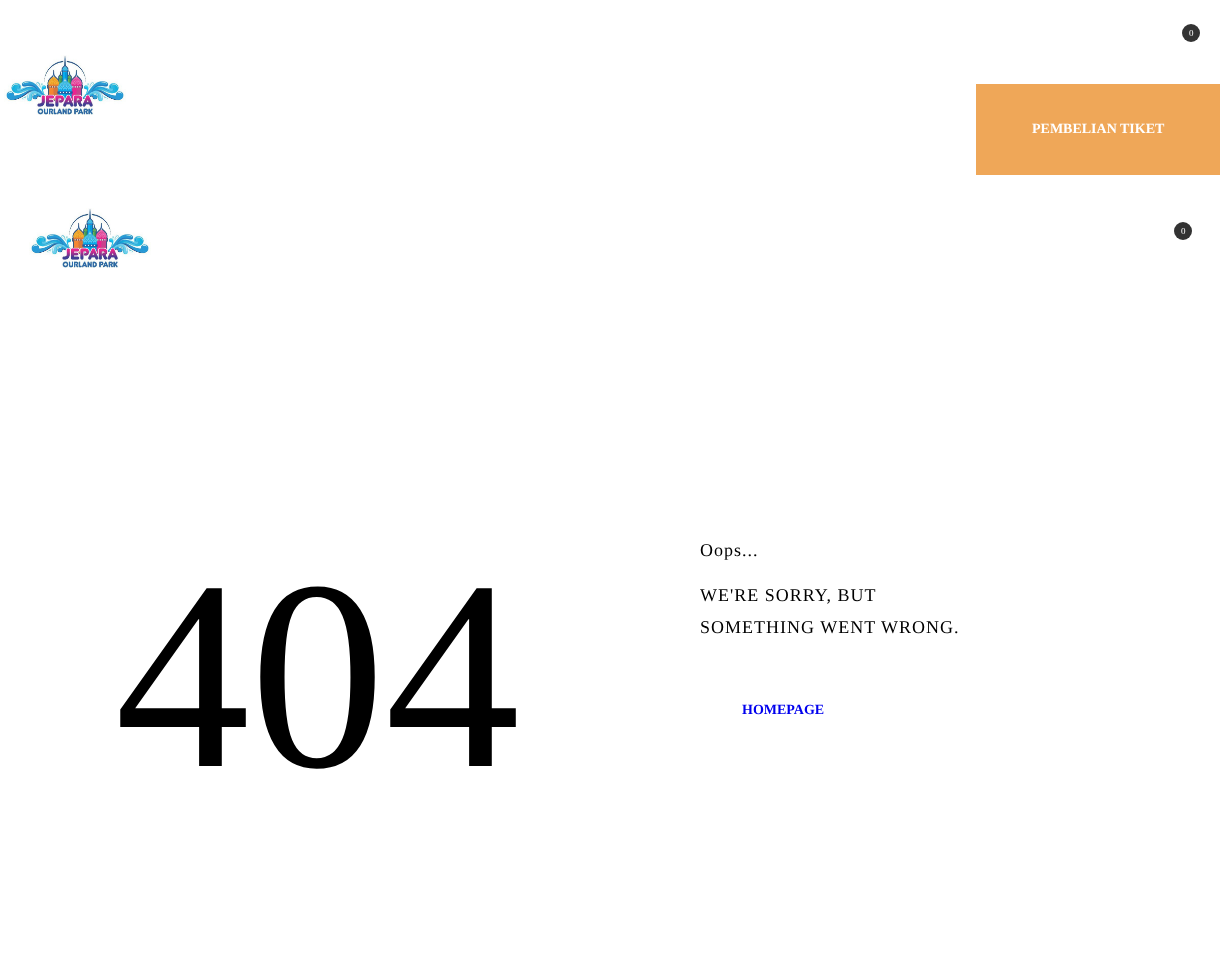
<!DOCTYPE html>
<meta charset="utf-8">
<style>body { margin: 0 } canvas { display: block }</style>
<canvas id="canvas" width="1220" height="956"></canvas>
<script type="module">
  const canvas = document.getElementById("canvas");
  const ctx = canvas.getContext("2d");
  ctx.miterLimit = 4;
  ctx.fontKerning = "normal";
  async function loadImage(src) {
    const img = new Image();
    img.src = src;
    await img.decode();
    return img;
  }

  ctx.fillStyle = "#ffffff";
  ctx.fillRect(0, 0, 1220, 956);
  ctx.drawImage(await loadImage("img1.png"), 4, 55, 122, 60);
  ctx.fillStyle = "#333333";
  ctx.beginPath();
  ctx.arc(1191, 33, 9, 0, Math.PI * 2);
  ctx.fill();
  ctx.font = "9px Liberation Serif";
  ctx.fillStyle = "#ffffff";
  ctx.fillText("0", 1189, 36);
  ctx.fillStyle = "#efa758";
  ctx.fillRect(976, 84, 244, 91);
  ctx.font = "bold 14px Liberation Serif";
  ctx.fillStyle = "#ffffff";
  ctx.fillText("PEMBELIAN TIKET", 1032, 133);
  ctx.drawImage(await loadImage("img2.png"), 29, 208, 122, 60);
  ctx.fillStyle = "#333333";
  ctx.beginPath();
  ctx.arc(1183, 231, 9, 0, Math.PI * 2);
  ctx.fill();
  ctx.font = "9px Liberation Serif";
  ctx.fillStyle = "#ffffff";
  ctx.fillText("0", 1181, 234);
  ctx.font = "270px Liberation Serif";
  ctx.fillStyle = "#000000";
  ctx.fillText("404", 115, 766);
  ctx.letterSpacing = "1px";
  ctx.font = "18px Liberation Serif";
  ctx.fillText("Oops...", 700, 556);
  ctx.fillText("WE'RE SORRY, BUT", 700, 601);
  ctx.fillText("SOMETHING WENT WRONG.", 700, 633);
  ctx.letterSpacing = "0px";
  ctx.font = "bold 14px Liberation Serif";
  ctx.fillStyle = "#0000ee";
  ctx.fillText("HOMEPAGE", 742, 714);
</script>
